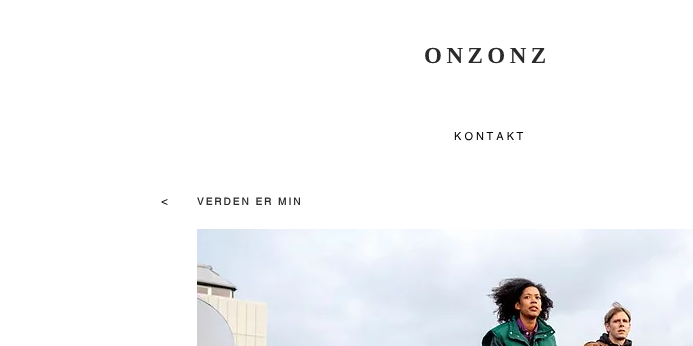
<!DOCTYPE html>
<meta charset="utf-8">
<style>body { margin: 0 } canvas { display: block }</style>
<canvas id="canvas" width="693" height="346"></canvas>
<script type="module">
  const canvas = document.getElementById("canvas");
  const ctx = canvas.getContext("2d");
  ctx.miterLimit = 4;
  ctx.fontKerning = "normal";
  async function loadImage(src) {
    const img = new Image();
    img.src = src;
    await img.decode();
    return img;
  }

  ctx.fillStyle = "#ffffff";
  ctx.fillRect(0, 0, 693, 346);
  ctx.letterSpacing = "4.5px";
  ctx.font = "bold 23px Liberation Serif";
  ctx.fillStyle = "#2a2a2a";
  ctx.fillText("ONZONZ", 424, 63);
  ctx.letterSpacing = "0px";
  ctx.font = "11px helvetica";
  ctx.fillStyle = "#000000";
  ctx.fillText("K O N T A K T", 454, 140);
  ctx.font = "12px helvetica";
  ctx.fillText("<", 161, 205);
  ctx.letterSpacing = "2px";
  ctx.font = "bold 10px helvetica";
  ctx.fillStyle = "#2a2a2a";
  ctx.fillText("VERDEN ER MIN", 197, 205);
  ctx.drawImage(await loadImage("img1.png"), 197, 229, 496, 117);
</script>
